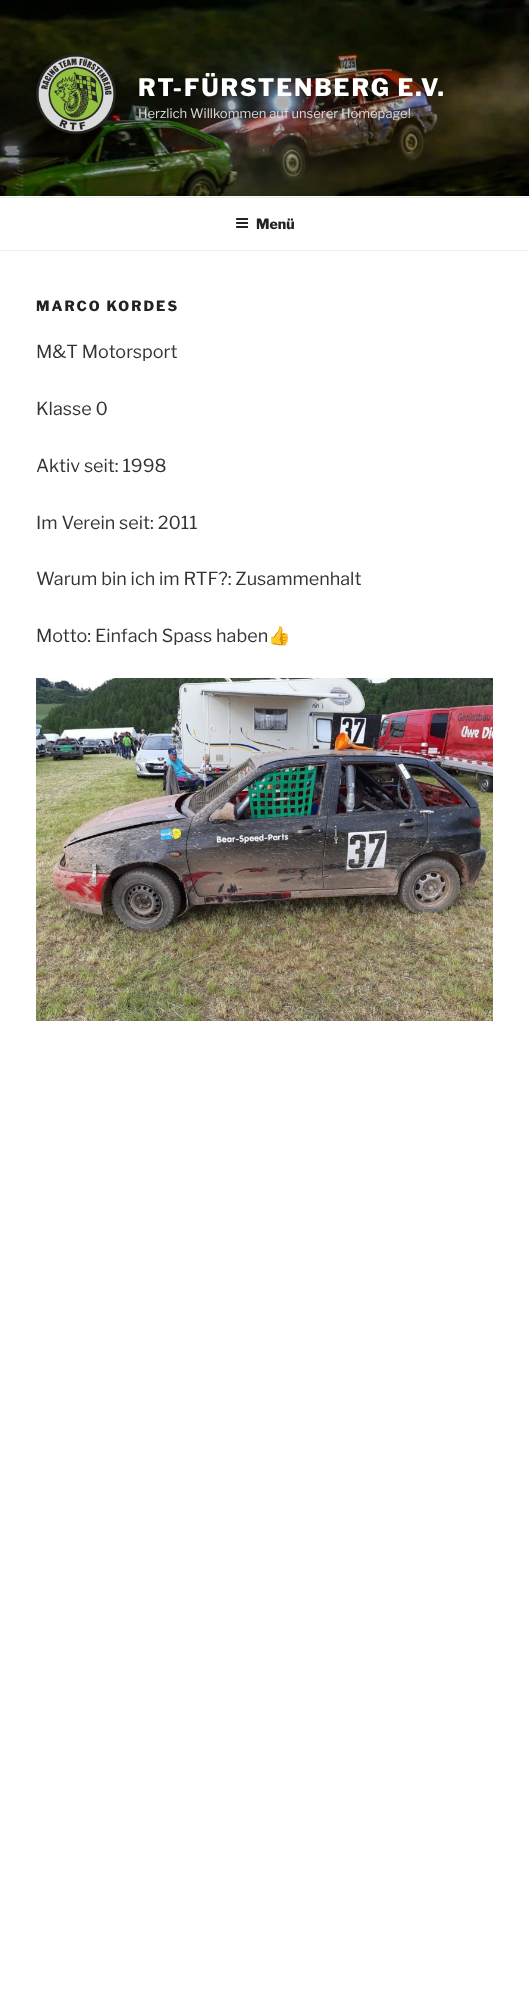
<!DOCTYPE html>
<meta charset="utf-8">
<style>body { margin: 0 } canvas { display: block }</style>
<canvas id="canvas" width="529" height="2013"></canvas>
<script type="module">
  const canvas = document.getElementById("canvas");
  const ctx = canvas.getContext("2d");
  ctx.miterLimit = 4;
  ctx.fontKerning = "normal";
  async function loadImage(src) {
    const img = new Image();
    img.src = src;
    await img.decode();
    return img;
  }

  ctx.fillStyle = "#ffffff";
  ctx.fillRect(0, 0, 529, 2013);
  ctx.fillStyle = "#fafafa";
  ctx.fillRect(0, 196, 529, 1);
  ctx.drawImage(await loadImage("img1.png"), 0, 0, 529, 196);
  ctx.drawImage(await loadImage("img2.png"), 36, 54, 80, 80);
  ctx.letterSpacing = "1.9px";
  ctx.font = "100 24px Libre Franklin";
  ctx.fillStyle = "#ffffff";
  ctx.fillText("RT-FÜRSTENBERG E.V.", 138, 96);
  ctx.letterSpacing = "0px";
  ctx.font = "100 13px 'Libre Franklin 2'";
  ctx.fillStyle = "#d9d7d7";
  ctx.fillText("Herzlich Willkommen auf unserer Homepage!", 138, 118);
  ctx.fillStyle = "#eeeeee";
  ctx.fillRect(0, 197, 529, 1);
  ctx.fillRect(0, 250, 529, 1);
  ctx.drawImage(await loadImage("img3.png"), 236, 218, 13, 10);
  ctx.font = "100 14px Libre Franklin";
  ctx.fillStyle = "#222222";
  ctx.fillText("Menü", 256, 229);
  ctx.letterSpacing = "2px";
  ctx.fillText("MARCO KORDES", 36, 311);
  ctx.letterSpacing = "0px";
  ctx.font = "100 18px 'Libre Franklin 2'";
  ctx.fillStyle = "#333333";
  ctx.fillText("M&T Motorsport", 36, 358);
  ctx.fillText("Klasse 0", 36, 415);
  ctx.fillText("Aktiv seit: 1998", 36, 472);
  ctx.fillText("Im Verein seit: 2011", 36, 529);
  ctx.fillText("Warum bin ich im RTF?: Zusammenhalt", 36, 585);
  ctx.fillText("Motto: Einfach Spass haben", 36, 642);
  ctx.font = "18px Noto Color Emoji";
  ctx.fillText("👍", 268, 642);
  ctx.drawImage(await loadImage("img4.png"), 36, 678, 457, 343);
</script>
